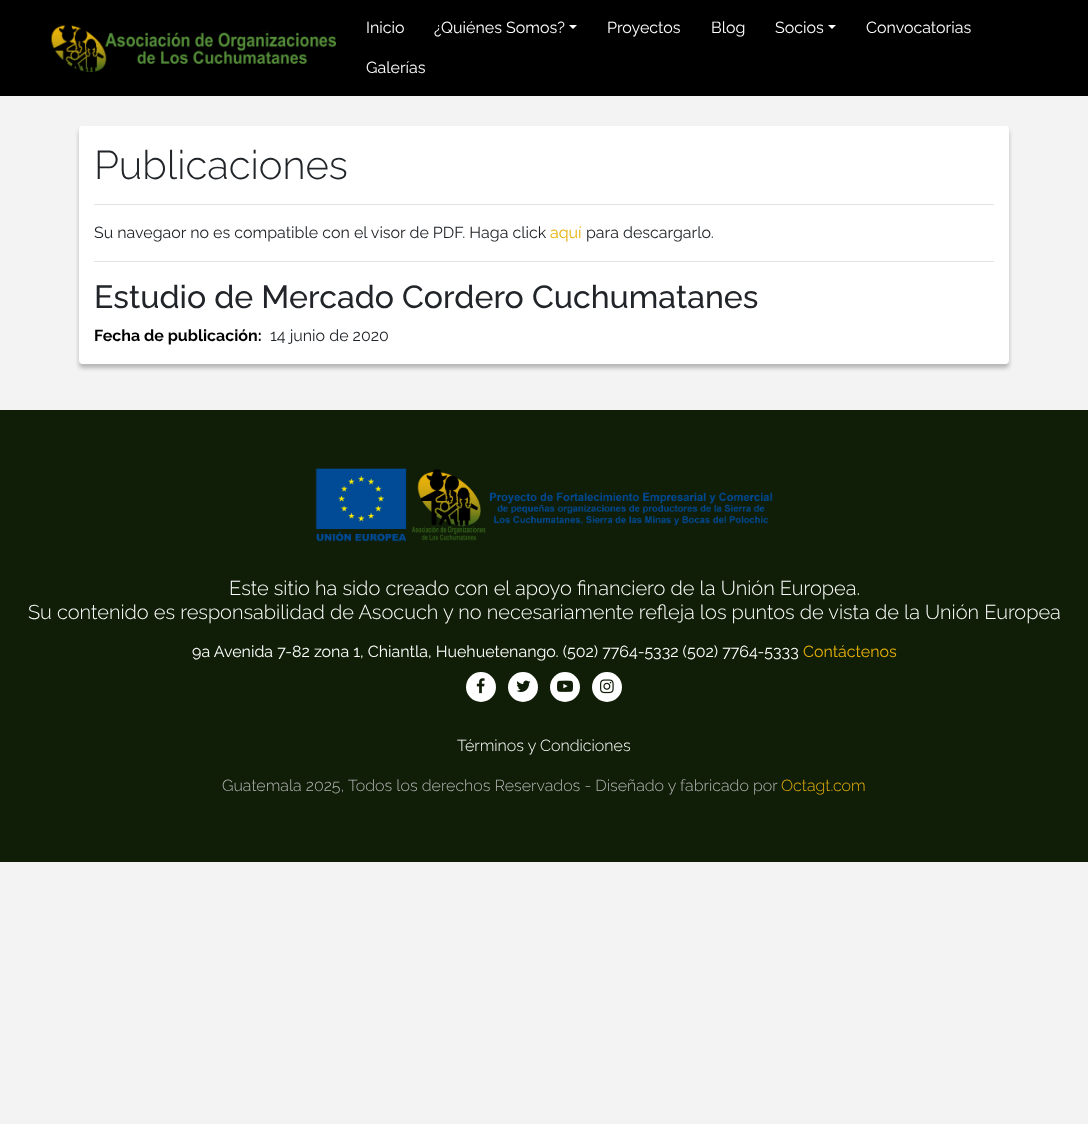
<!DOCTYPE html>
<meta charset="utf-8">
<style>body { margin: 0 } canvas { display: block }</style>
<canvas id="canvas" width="1088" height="1124"></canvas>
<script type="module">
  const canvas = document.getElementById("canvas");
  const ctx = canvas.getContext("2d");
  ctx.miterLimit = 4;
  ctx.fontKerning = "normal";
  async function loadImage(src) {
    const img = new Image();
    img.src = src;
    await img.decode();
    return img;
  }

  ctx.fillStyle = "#f3f3f3";
  ctx.fillRect(0, 0, 1088, 1124);
  ctx.fillStyle = "#000000";
  ctx.fillRect(0, 0, 1088, 96);
  ctx.drawImage(await loadImage("img1.png"), 51, 25, 285, 48);
  ctx.font = "16px Raleway";
  ctx.fillStyle = "#ffffff";
  ctx.fillText("Inicio", 366, 33);
  ctx.fillText("¿Quiénes Somos?", 434, 33);
  ctx.beginPath();
  ctx.moveTo(569, 25);
  ctx.lineTo(577, 25);
  ctx.lineTo(573, 29);
  ctx.closePath();
  ctx.fill();
  ctx.fillText("Proyectos", 607, 33);
  ctx.fillText("Blog", 711, 33);
  ctx.fillText("Socios", 775, 33);
  ctx.beginPath();
  ctx.moveTo(828, 25);
  ctx.lineTo(836, 25);
  ctx.lineTo(832, 29);
  ctx.closePath();
  ctx.fill();
  ctx.fillText("Convocatorias", 866, 33);
  ctx.fillText("Galerías", 366, 73);
  ctx.fillStyle = "rgba(0, 0, 0, 0.25)";
  ctx.filter = "blur(2px)";
  ctx.beginPath();
  ctx.roundRect(79, 130, 930, 238, 4);
  ctx.fill();
  ctx.filter = "none";
  ctx.fillStyle = "#ffffff";
  ctx.beginPath();
  ctx.roundRect(79, 126, 930, 238, 4);
  ctx.fill();
  ctx.font = "300 40px Raleway";
  ctx.fillStyle = "#212529";
  ctx.fillText("Publicaciones", 94, 179);
  ctx.fillStyle = "#e2e2e2";
  ctx.fillRect(94, 204, 900, 1);
  ctx.font = "16px Raleway";
  ctx.fillStyle = "#212529";
  ctx.fillText("Su navegaor no es compatible con el visor de PDF. Haga click", 94, 238);
  ctx.fillStyle = "#e7b108";
  ctx.fillText("aquí", 550, 238);
  ctx.fillStyle = "#212529";
  ctx.fillText("para descargarlo.", 586, 238);
  ctx.fillStyle = "#e2e2e2";
  ctx.fillRect(94, 261, 900, 1);
  ctx.font = "500 32px Raleway";
  ctx.fillStyle = "#212529";
  ctx.fillText("Estudio de Mercado Cordero Cuchumatanes", 94, 308);
  ctx.font = "bold 16px Raleway";
  ctx.fillStyle = "#000000";
  ctx.fillText("Fecha de publicación:", 94, 341);
  ctx.font = "16px Raleway";
  ctx.fillStyle = "#212529";
  ctx.fillText("14 junio de 2020", 270, 341);
  ctx.fillStyle = "#101e07";
  ctx.fillRect(0, 410, 1088, 452);
  ctx.drawImage(await loadImage("img2.png"), 315, 468, 458, 74);
  ctx.font = "300 20px Raleway";
  ctx.fillStyle = "#ffffff";
  ctx.fillText("Este sitio ha sido creado con el apoyo financiero de la Unión Europea.", 229, 595);
  ctx.fillText("Su contenido es responsabilidad de Asocuch y no necesariamente refleja los puntos de vista de la Unión Europea", 28, 619);
  ctx.font = "16px Raleway";
  ctx.fillText("9a Avenida 7-82 zona 1, Chiantla, Huehuetenango. (502) 7764-5332 (502) 7764-5333", 192, 657);
  ctx.fillStyle = "#e7b108";
  ctx.fillText("Contáctenos", 803, 657);
  ctx.fillStyle = "#ffffff";
  ctx.beginPath();
  ctx.arc(481, 687, 15, 0, Math.PI * 2);
  ctx.fill();
  ctx.drawImage(await loadImage("img3.png"), 476, 678, 9, 16);
  ctx.beginPath();
  ctx.arc(523, 687, 15, 0, Math.PI * 2);
  ctx.fill();
  ctx.drawImage(await loadImage("img4.png"), 516, 680, 15, 12);
  ctx.beginPath();
  ctx.arc(565, 687, 15, 0, Math.PI * 2);
  ctx.fill();
  ctx.drawImage(await loadImage("img5.png"), 557, 680, 16, 12);
  ctx.beginPath();
  ctx.arc(607, 687, 15, 0, Math.PI * 2);
  ctx.fill();
  ctx.drawImage(await loadImage("img6.png"), 600, 679, 14, 15);
  ctx.font = "300 16px Raleway";
  ctx.fillText("Términos y Condiciones", 457, 751);
  ctx.fillStyle = "#b5b5b5";
  ctx.fillText("Guatemala 2025, Todos los derechos Reservados - Diseñado y fabricado por", 222, 791);
  ctx.fillStyle = "#e7b108";
  ctx.fillText("Octagt.com", 781, 791);
</script>
